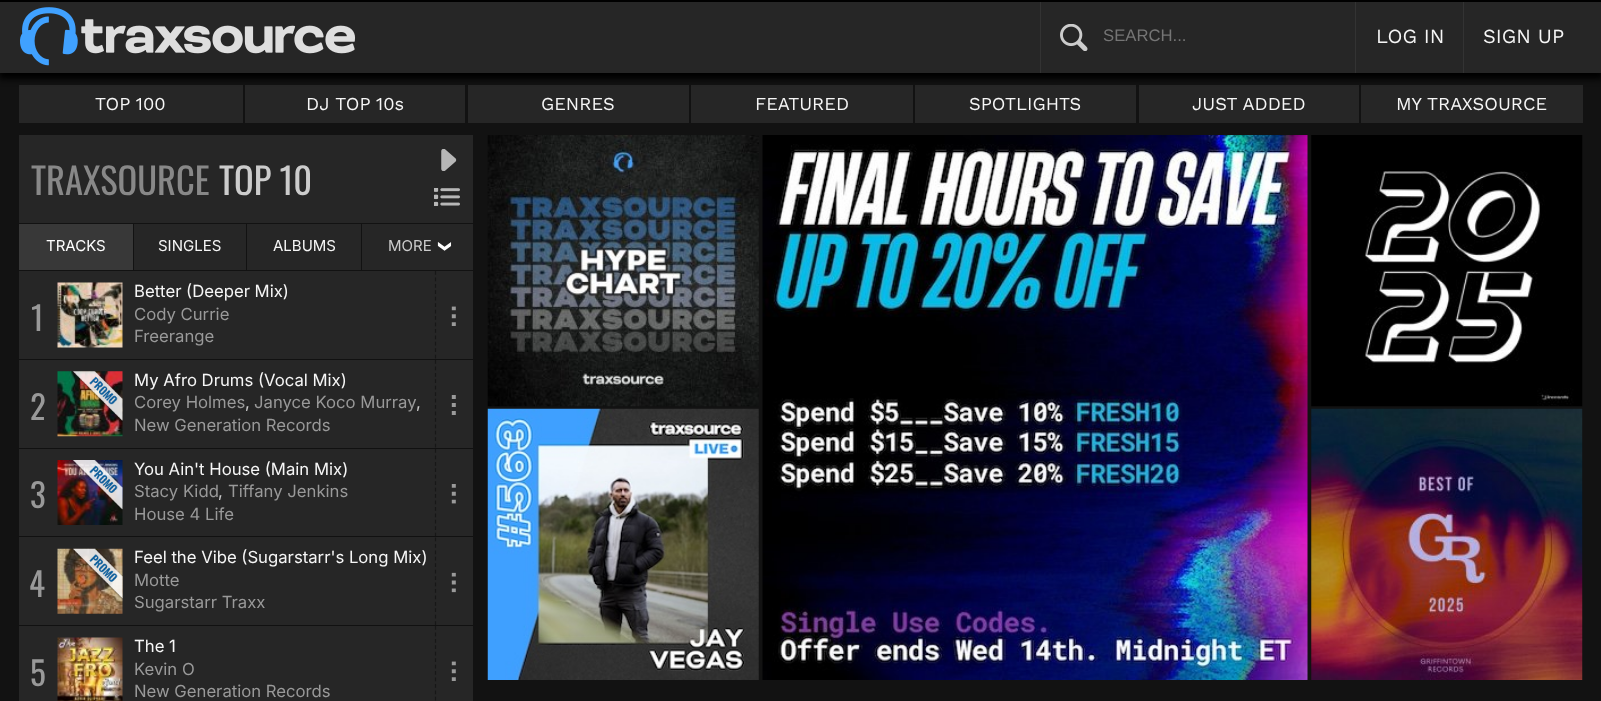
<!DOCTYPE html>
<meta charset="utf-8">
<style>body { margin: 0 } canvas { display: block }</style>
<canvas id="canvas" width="1601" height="701"></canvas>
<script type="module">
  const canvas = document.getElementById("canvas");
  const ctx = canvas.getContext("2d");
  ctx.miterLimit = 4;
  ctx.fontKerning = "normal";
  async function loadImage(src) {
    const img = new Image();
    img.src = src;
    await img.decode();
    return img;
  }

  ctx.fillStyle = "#121212";
  ctx.fillRect(0, 0, 1601, 701);
  ctx.fillStyle = "#262626";
  ctx.fillRect(19, 85, 224, 38);
  ctx.fillRect(245, 85, 220, 38);
  ctx.fillRect(468, 85, 221, 38);
  ctx.fillRect(691, 85, 222, 38);
  ctx.fillRect(915, 85, 221, 38);
  ctx.fillRect(1139, 85, 220, 38);
  ctx.fillRect(1361, 85, 222, 38);
  ctx.fillStyle = "#000000";
  ctx.filter = "blur(3px)";
  ctx.beginPath();
  ctx.rect(-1, 4, 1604, 75);
  ctx.fill();
  ctx.filter = "none";
  ctx.fillStyle = "#262626";
  ctx.fillRect(0, 2, 1601, 71);
  ctx.fillStyle = "#333333";
  ctx.fillRect(1040, 0, 1, 73);
  ctx.fillRect(1355, 0, 1, 73);
  ctx.fillRect(1463, 0, 1, 73);
  ctx.fillStyle = "#000000";
  ctx.fillRect(0, 0, 1601, 2);
  ctx.drawImage(await loadImage("img1.png"), 20, 7, 336, 59);
  ctx.drawImage(await loadImage("img2.png"), 1060, 24, 28, 27);
  ctx.font = "16.7px Liberation Sans";
  ctx.fillStyle = "#757575";
  ctx.fillText("SEARCH...", 1103, 41);
  ctx.font = "20px Work Sans";
  ctx.fillStyle = "#f6f6f6";
  ctx.fillText("LOG IN", 1376, 43);
  ctx.fillText("SIGN UP", 1483, 43);
  ctx.font = "18.25px Work Sans";
  ctx.fillText("TOP 100", 95, 110);
  ctx.fillText("DJ TOP 10s", 306, 110);
  ctx.fillText("GENRES", 541, 110);
  ctx.fillText("FEATURED", 755, 110);
  ctx.fillText("SPOTLIGHTS", 969, 110);
  ctx.fillText("JUST ADDED", 1192, 110);
  ctx.fillText("MY TRAXSOURCE", 1396, 110);
  ctx.fillStyle = "#262626";
  ctx.fillRect(19, 135, 454, 88);
  ctx.font = "36.5px Oswald";
  ctx.fillStyle = "#888888";
  ctx.fillText("TRAXSOURCE", 31, 195);
  ctx.fillStyle = "#cccccc";
  ctx.fillText("TOP 10", 219, 195);
  ctx.drawImage(await loadImage("img3.png"), 441, 149, 16, 22);
  ctx.drawImage(await loadImage("img4.png"), 434, 188, 26, 18);
  ctx.fillStyle = "#383838";
  ctx.fillRect(19, 224, 114, 46);
  ctx.font = "15px Inter";
  ctx.fillStyle = "#ffffff";
  ctx.fillText("TRACKS", 46, 251);
  ctx.fillStyle = "#262626";
  ctx.fillRect(134, 224, 112, 46);
  ctx.fillStyle = "#f6f6f6";
  ctx.fillText("SINGLES", 158, 251);
  ctx.fillStyle = "#262626";
  ctx.fillRect(247, 224, 114, 46);
  ctx.fillStyle = "#f6f6f6";
  ctx.fillText("ALBUMS", 273, 251);
  ctx.fillStyle = "#262626";
  ctx.fillRect(362, 224, 111, 46);
  ctx.fillStyle = "#cccccc";
  ctx.fillText("MORE", 388, 251);
  ctx.drawImage(await loadImage("img5.png"), 437, 242, 15, 9);
  ctx.fillStyle = "#262626";
  ctx.fillRect(19, 271, 454, 430);
  ctx.fillStyle = "#111111";
  ctx.fillRect(19, 359, 454, 1);
  ctx.letterSpacing = "-4px";
  ctx.font = "33px Oswald";
  ctx.fillStyle = "#999999";
  ctx.fillText("1", 31, 331);
  ctx.drawImage(await loadImage("img6.png"), 57, 282, 66, 66);
  ctx.letterSpacing = "0px";
  ctx.font = "16.7px Inter";
  ctx.fillStyle = "#f6f6f6";
  ctx.fillText("Better (Deeper Mix)", 134, 297);
  ctx.fillStyle = "#999999";
  ctx.fillText("Cody Currie", 134, 320);
  ctx.fillText("Freerange", 134, 342);
  ctx.beginPath();
  ctx.moveTo(435.5, 271);
  ctx.lineTo(435.5, 359);
  ctx.strokeStyle = "#171717";
  ctx.lineWidth = 1.2;
  ctx.setLineDash([3.75, 2.69]);
  ctx.stroke();
  ctx.drawImage(await loadImage("img7.png"), 451, 306, 5, 20);
  ctx.fillStyle = "#111111";
  ctx.fillRect(19, 448, 454, 1);
  ctx.letterSpacing = "-4px";
  ctx.font = "33px Oswald";
  ctx.fillStyle = "#999999";
  ctx.fillText("2", 30, 420);
  ctx.drawImage(await loadImage("img8.png"), 57, 371, 66, 66);
  ctx.drawImage(await loadImage("img9.png"), 72, 371, 51, 51);
  ctx.letterSpacing = "0px";
  ctx.font = "16.7px Inter";
  ctx.fillStyle = "#f6f6f6";
  ctx.fillText("My Afro Drums (Vocal Mix)", 134, 386);
  ctx.fillStyle = "#999999";
  ctx.fillText("Corey Holmes", 134, 408);
  ctx.fillStyle = "#cccccc";
  ctx.fillText(",", 245, 408);
  ctx.fillStyle = "#999999";
  ctx.fillText("Janyce Koco Murray", 254, 408);
  ctx.fillStyle = "#cccccc";
  ctx.fillText(",", 416, 408);
  ctx.fillStyle = "#999999";
  ctx.fillText("New Generation Records", 134, 431);
  ctx.beginPath();
  ctx.moveTo(435.5, 360);
  ctx.lineTo(435.5, 447.5);
  ctx.stroke();
  ctx.drawImage(await loadImage("img10.png"), 451, 395, 5, 20);
  ctx.fillStyle = "#111111";
  ctx.fillRect(19, 536, 454, 1);
  ctx.letterSpacing = "-4px";
  ctx.font = "33px Oswald";
  ctx.fillStyle = "#999999";
  ctx.fillText("3", 30, 508);
  ctx.drawImage(await loadImage("img11.png"), 57, 460, 66, 65);
  ctx.drawImage(await loadImage("img12.png"), 71, 460, 52, 50);
  ctx.letterSpacing = "0px";
  ctx.font = "16.7px Inter";
  ctx.fillStyle = "#f6f6f6";
  ctx.fillText("You Ain't House (Main Mix)", 134, 475);
  ctx.fillStyle = "#999999";
  ctx.fillText("Stacy Kidd", 134, 497);
  ctx.fillStyle = "#cccccc";
  ctx.fillText(",", 218, 497);
  ctx.fillStyle = "#999999";
  ctx.fillText("Tiffany Jenkins", 228, 497);
  ctx.fillText("House 4 Life", 134, 520);
  ctx.beginPath();
  ctx.moveTo(435.5, 449);
  ctx.lineTo(435.5, 536);
  ctx.stroke();
  ctx.drawImage(await loadImage("img13.png"), 451, 484, 5, 20);
  ctx.fillStyle = "#111111";
  ctx.fillRect(19, 625, 454, 1);
  ctx.letterSpacing = "-4px";
  ctx.font = "33px Oswald";
  ctx.fillStyle = "#999999";
  ctx.fillText("4", 29, 597);
  ctx.drawImage(await loadImage("img14.png"), 57, 548, 66, 66);
  ctx.drawImage(await loadImage("img15.png"), 72, 548, 51, 52);
  ctx.letterSpacing = "0px";
  ctx.font = "16.7px Inter";
  ctx.fillStyle = "#f6f6f6";
  ctx.fillText("Feel the Vibe (Sugarstarr's Long Mix)", 134, 563);
  ctx.fillStyle = "#999999";
  ctx.fillText("Motte", 134, 586);
  ctx.fillText("Sugarstarr Traxx", 134, 608);
  ctx.beginPath();
  ctx.moveTo(435.5, 537.5);
  ctx.lineTo(435.5, 625);
  ctx.stroke();
  ctx.drawImage(await loadImage("img16.png"), 451, 572, 5, 21);
  ctx.letterSpacing = "-4px";
  ctx.font = "33px Oswald";
  ctx.fillText("5", 30, 686);
  ctx.drawImage(await loadImage("img17.png"), 57, 637, 66, 64);
  ctx.letterSpacing = "0px";
  ctx.font = "16.7px Inter";
  ctx.fillStyle = "#f6f6f6";
  ctx.fillText("The 1", 134, 652);
  ctx.fillStyle = "#999999";
  ctx.fillText("Kevin O", 134, 675);
  ctx.fillText("New Generation Records", 134, 697);
  ctx.beginPath();
  ctx.moveTo(435.5, 626);
  ctx.lineTo(435.5, 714);
  ctx.stroke();
  ctx.drawImage(await loadImage("img7.png"), 451, 661, 5, 20);
  ctx.drawImage(await loadImage("img18.png"), 487, 135, 272, 272);
  ctx.drawImage(await loadImage("img19.png"), 487, 408, 272, 272);
  ctx.drawImage(await loadImage("img20.png"), 762, 135, 546, 545);
  ctx.drawImage(await loadImage("img21.png"), 1311, 135, 272, 272);
  ctx.drawImage(await loadImage("img22.png"), 1311, 408, 272, 272);
</script>
